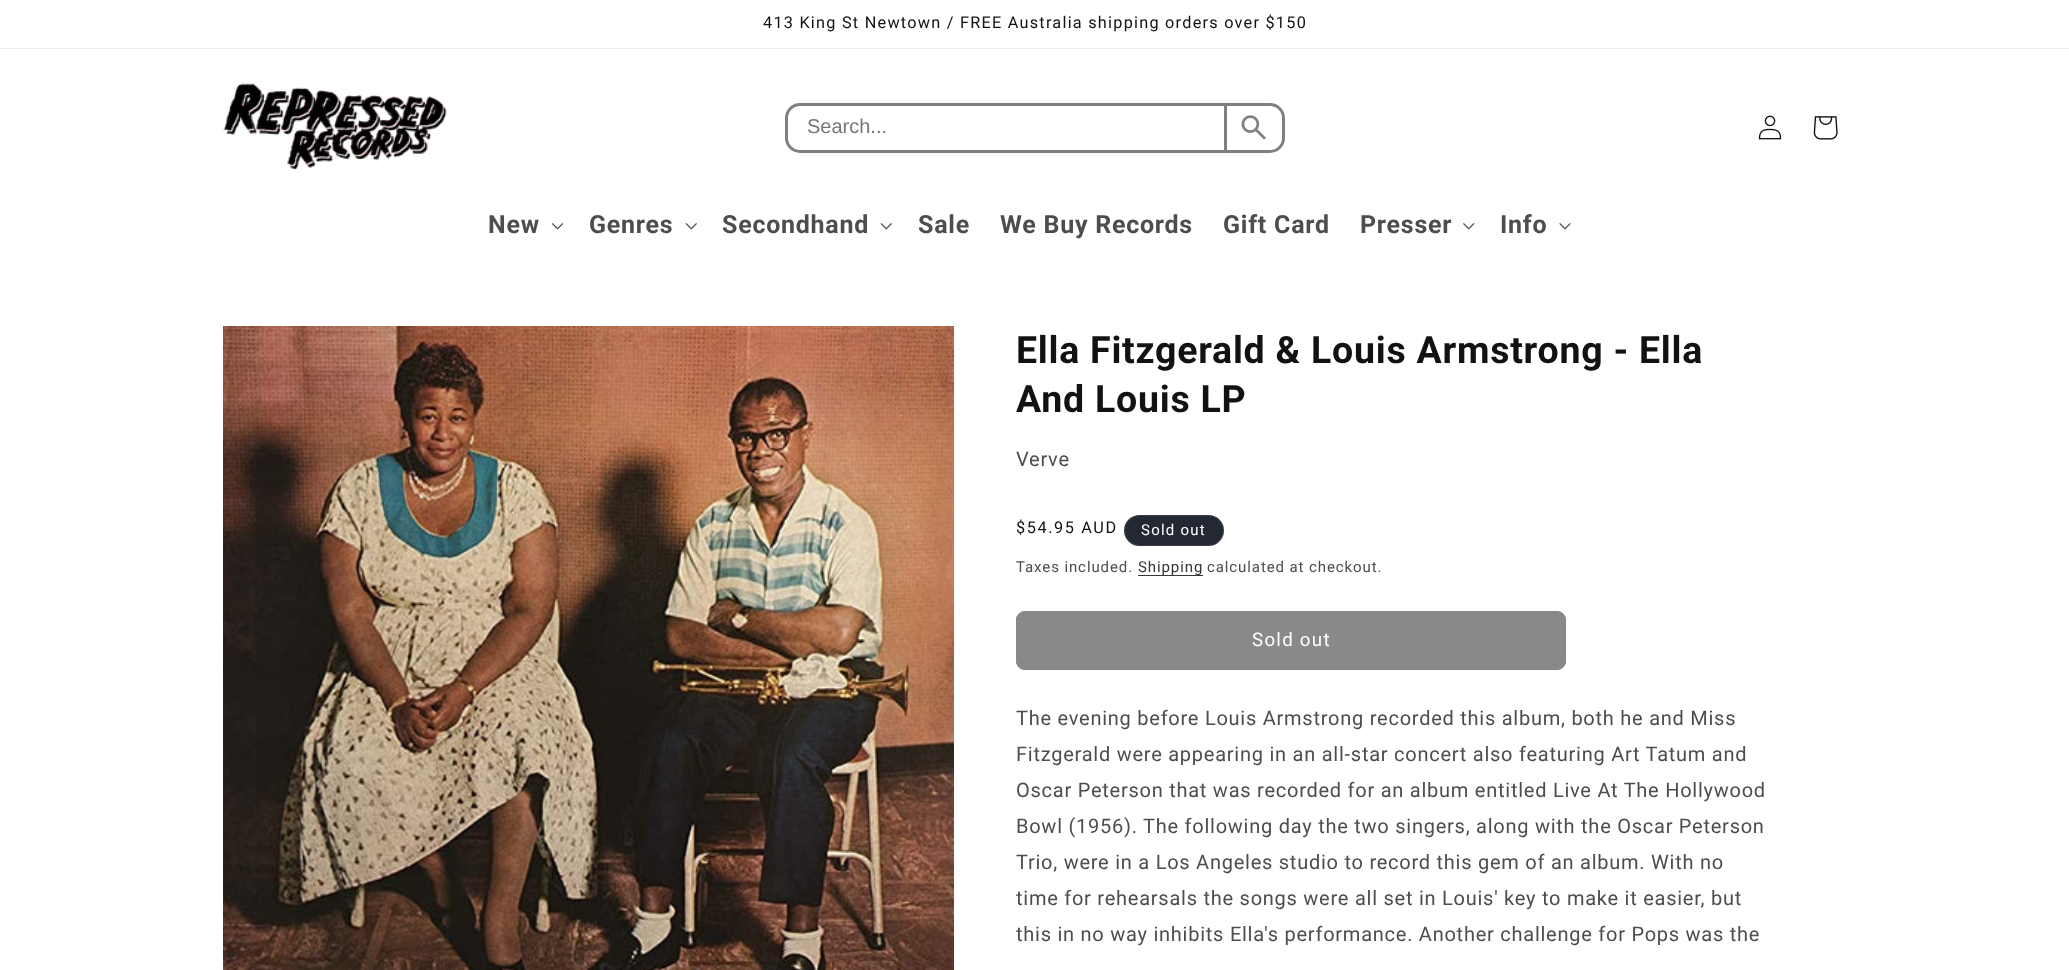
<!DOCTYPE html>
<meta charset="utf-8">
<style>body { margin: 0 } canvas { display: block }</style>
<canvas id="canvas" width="2069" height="970"></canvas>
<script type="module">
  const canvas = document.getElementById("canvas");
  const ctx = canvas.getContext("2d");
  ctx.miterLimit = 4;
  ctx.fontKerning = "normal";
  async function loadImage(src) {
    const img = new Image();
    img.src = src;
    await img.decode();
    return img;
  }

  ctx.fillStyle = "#ffffff";
  ctx.fillRect(0, 0, 2069, 970);
  ctx.fillStyle = "#ececec";
  ctx.fillRect(0, 48, 2069, 1);
  ctx.letterSpacing = "1.25px";
  ctx.font = "16.25px Roboto";
  ctx.fillStyle = "#121212";
  ctx.fillText("413 King St Newtown / FREE Australia shipping orders over $150", 763, 28);
  ctx.drawImage(await loadImage("img1.png"), 223, 83, 224, 87);
  ctx.beginPath();
  ctx.roundRect(786.5, 104.5, 497, 47, 13.5);
  ctx.strokeStyle = "#808080";
  ctx.lineWidth = 3;
  ctx.stroke();
  ctx.fillStyle = "#808080";
  ctx.fillRect(1224, 105, 3, 45);
  ctx.letterSpacing = "0px";
  ctx.font = "20px Liberation Sans";
  ctx.fillStyle = "#757575";
  ctx.fillText("Search...", 807, 133);
  ctx.drawImage(await loadImage("img2.png"), 1241, 115, 25, 25);
  ctx.drawImage(await loadImage("img3.png"), 1758, 115, 24, 25);
  ctx.drawImage(await loadImage("img4.png"), 1813, 116, 25, 24);
  ctx.letterSpacing = "0.75px";
  ctx.font = "bold 25px Roboto";
  ctx.fillStyle = "#4d4d4d";
  ctx.fillText("New", 488, 233);
  ctx.drawImage(await loadImage("img5.png"), 551, 223, 13, 7);
  ctx.fillText("Genres", 589, 233);
  ctx.drawImage(await loadImage("img6.png"), 685, 223, 12, 7);
  ctx.fillText("Secondhand", 722, 233);
  ctx.drawImage(await loadImage("img6.png"), 880, 223, 12, 7);
  ctx.fillText("Sale", 918, 233);
  ctx.fillText("We Buy Records", 1000, 233);
  ctx.fillText("Gift Card", 1223, 233);
  ctx.fillText("Presser", 1360, 233);
  ctx.drawImage(await loadImage("img7.png"), 1463, 223, 12, 7);
  ctx.fillText("Info", 1500, 233);
  ctx.drawImage(await loadImage("img8.png"), 1559, 223, 12, 7);
  ctx.drawImage(await loadImage("img9.png"), 223, 326, 731, 644);
  ctx.font = "bold 37.5px Roboto";
  ctx.fillStyle = "#121212";
  ctx.fillText("Ella Fitzgerald & Louis Armstrong - Ella", 1016, 363);
  ctx.fillText("And Louis LP", 1016, 412);
  ctx.font = "20px Roboto";
  ctx.fillStyle = "#4d4d4d";
  ctx.fillText("Verve", 1016, 466);
  ctx.letterSpacing = "1.6px";
  ctx.font = "16.25px Roboto";
  ctx.fillStyle = "#121212";
  ctx.fillText("$54.95 AUD", 1016, 533);
  ctx.fillStyle = "#242833";
  ctx.beginPath();
  ctx.roundRect(1124, 515, 100, 31, 15.5);
  ctx.fill();
  ctx.beginPath();
  ctx.roundRect(1124.5, 515.5, 99, 30, 15);
  ctx.strokeStyle = "rgba(255, 255, 255, 0.1)";
  ctx.lineWidth = 1;
  ctx.stroke();
  ctx.letterSpacing = "1.25px";
  ctx.font = "15px Roboto";
  ctx.fillStyle = "#ffffff";
  ctx.fillText("Sold out", 1141, 535);
  ctx.letterSpacing = "0.9px";
  ctx.fillStyle = "#4d4d4d";
  ctx.fillText("Taxes included.", 1016, 572);
  ctx.fillStyle = "#363636";
  ctx.fillRect(1138, 575, 65, 1);
  ctx.fillStyle = "#353535";
  ctx.fillText("Shipping", 1138, 572);
  ctx.fillStyle = "#4d4d4d";
  ctx.fillText("calculated at checkout.", 1207, 572);
  ctx.fillStyle = "#898989";
  ctx.beginPath();
  ctx.roundRect(1016, 611, 550, 59, 9);
  ctx.fill();
  ctx.beginPath();
  ctx.roundRect(1016.5, 611.5, 549, 58, 8.5);
  ctx.strokeStyle = "#898989";
  ctx.stroke();
  ctx.letterSpacing = "1.25px";
  ctx.font = "18.75px Roboto";
  ctx.fillStyle = "#ffffff";
  ctx.fillText("Sold out", 1252, 646);
  ctx.letterSpacing = "0.75px";
  ctx.font = "20px Roboto";
  ctx.fillStyle = "#4d4d4d";
  ctx.fillText("The evening before Louis Armstrong recorded this album, both he and Miss", 1016, 725);
  ctx.fillText("Fitzgerald were appearing in an all-star concert also featuring Art Tatum and", 1016, 761);
  ctx.fillText("Oscar Peterson that was recorded for an album entitled Live At The Hollywood", 1016, 797);
  ctx.fillText("Bowl (1956). The following day the two singers, along with the Oscar Peterson", 1016, 833);
  ctx.fillText("Trio, were in a Los Angeles studio to record this gem of an album. With no", 1016, 869);
  ctx.fillText("time for rehearsals the songs were all set in Louis' key to make it easier, but", 1016, 905);
  ctx.fillText("this in no way inhibits Ella's performance. Another challenge for Pops was the", 1016, 941);
</script>
